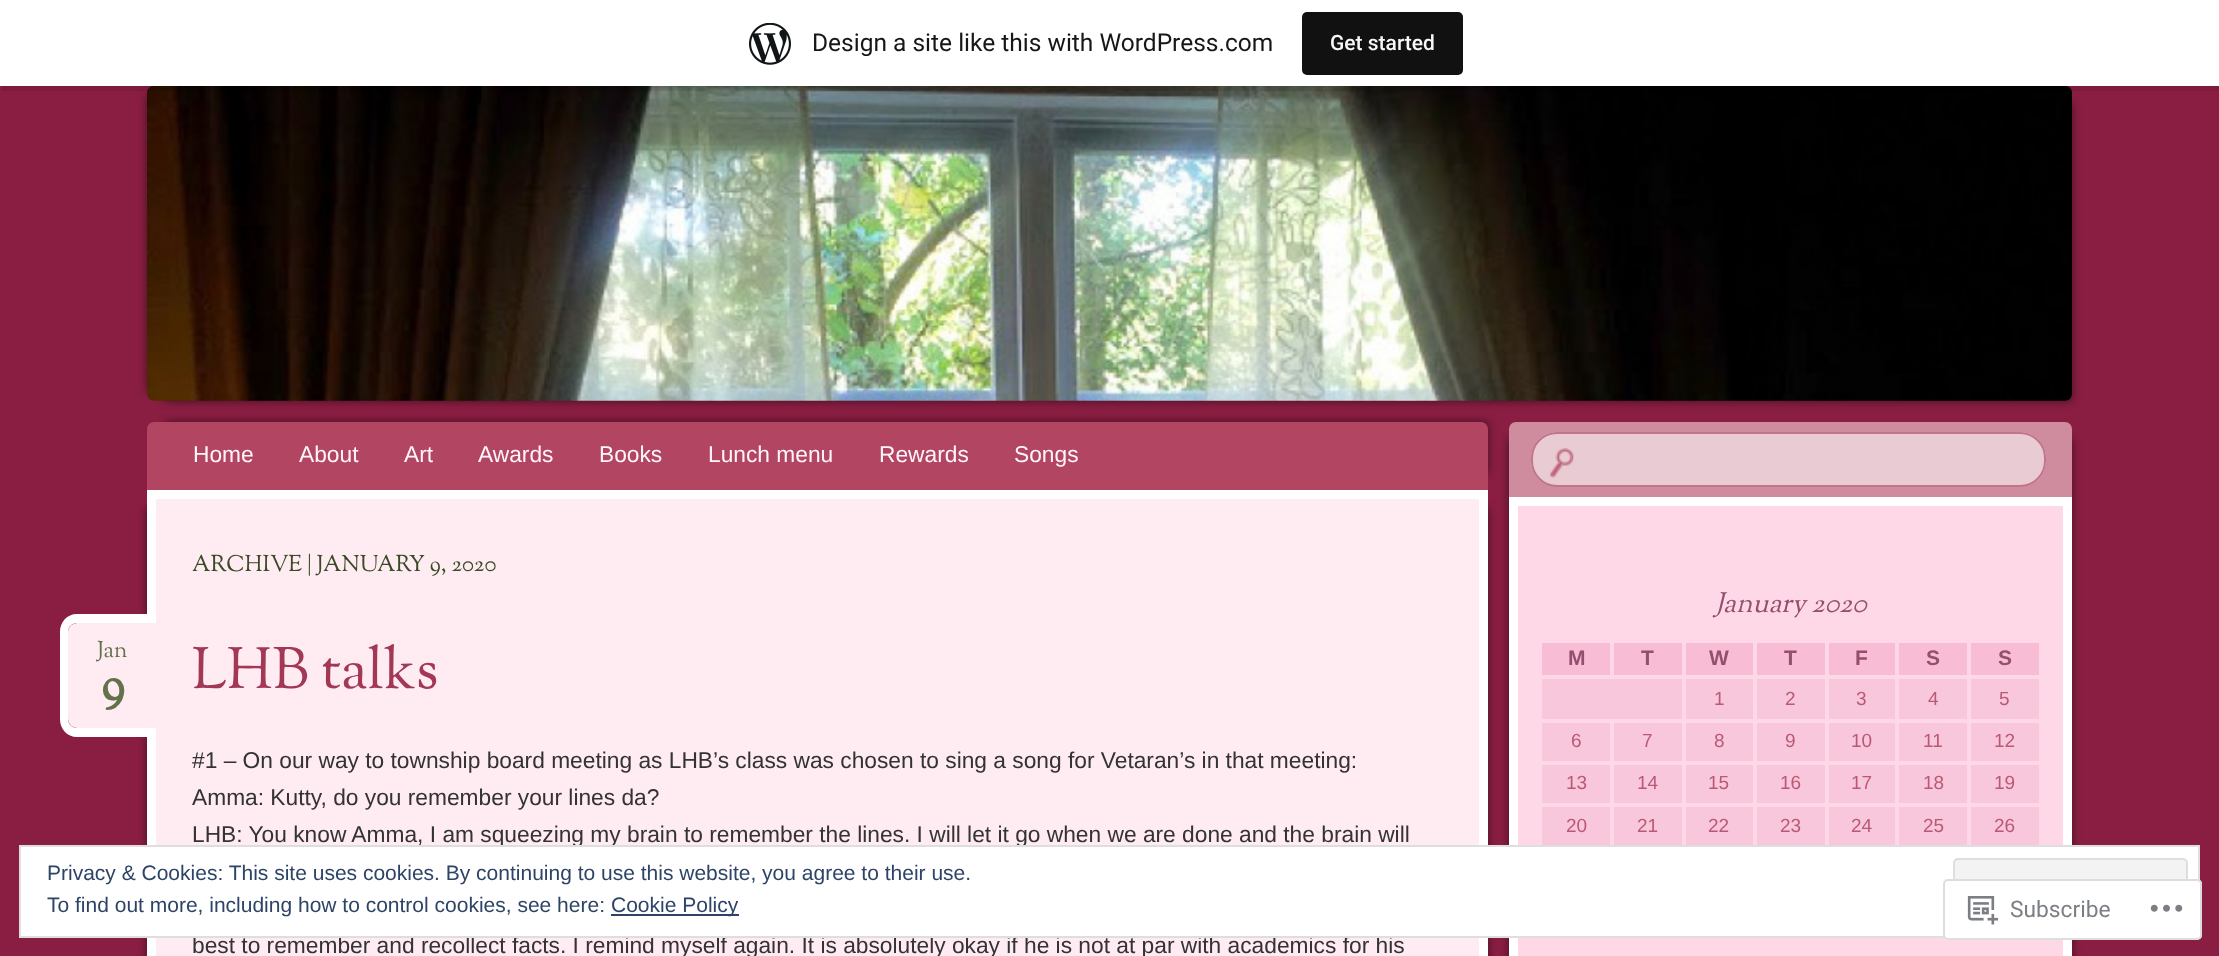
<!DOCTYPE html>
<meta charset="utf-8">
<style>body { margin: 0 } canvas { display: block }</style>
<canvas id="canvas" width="2219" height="956"></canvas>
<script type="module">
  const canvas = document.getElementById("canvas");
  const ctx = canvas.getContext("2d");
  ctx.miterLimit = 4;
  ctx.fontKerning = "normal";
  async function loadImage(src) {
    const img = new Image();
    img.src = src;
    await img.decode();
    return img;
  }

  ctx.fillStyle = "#891e42";
  ctx.fillRect(0, 0, 2219, 956);
  ctx.fillStyle = "rgba(0, 0, 0, 0.5)";
  ctx.filter = "blur(4.5px)";
  ctx.beginPath();
  ctx.rect(147, 95, 1908, 297);
  ctx.fill();
  ctx.filter = "none";
  ctx.filter = "blur(4.5px)";
  ctx.beginPath();
  ctx.rect(165, 103, 1907, 298);
  ctx.fill();
  ctx.filter = "none";
  ctx.drawImage(await loadImage("img2.png"), 147, 86, 1925, 315);
  ctx.fillStyle = "rgba(0, 0, 0, 0.08)";
  ctx.beginPath();
  ctx.moveTo(2, 86);
  ctx.lineTo(2, 91);
  ctx.lineTo(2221, 91);
  ctx.lineTo(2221, 5);
  ctx.lineTo(2219, 5);
  ctx.lineTo(2219, 86);
  ctx.closePath();
  ctx.fill();
  ctx.fillStyle = "#ffffff";
  ctx.fillRect(0, 0, 2219, 86);
  ctx.drawImage(await loadImage("img1.png"), 749, 23, 42, 42);
  ctx.font = "24.5px Roboto";
  ctx.fillStyle = "#171717";
  ctx.fillText("Design a site like this with WordPress.com", 812, 51);
  ctx.fillStyle = "#111111";
  ctx.beginPath();
  ctx.roundRect(1302, 12, 161, 63, 5);
  ctx.fill();
  ctx.font = "500 21px Roboto";
  ctx.fillStyle = "#f6f7f7";
  ctx.fillText("Get started", 1330, 50);
  ctx.fillStyle = "rgba(0, 0, 0, 0.5)";
  ctx.filter = "blur(4.5px)";
  ctx.beginPath();
  ctx.rect(165, 422, 1323, 51);
  ctx.fill();
  ctx.filter = "none";
  ctx.fillStyle = "#b14562";
  ctx.beginPath();
  ctx.roundRect(147, 422, 1341, 68, [7, 7, 0, 0]);
  ctx.fill();
  ctx.font = "22.75px Liberation Sans";
  ctx.fillStyle = "#fff4f9";
  ctx.fillText("Home", 193, 462);
  ctx.fillText("About", 299, 462);
  ctx.fillText("Art", 404, 462);
  ctx.fillText("Awards", 478, 462);
  ctx.fillText("Books", 599, 462);
  ctx.fillText("Lunch menu", 708, 462);
  ctx.fillText("Rewards", 879, 462);
  ctx.fillText("Songs", 1014, 462);
  ctx.fillStyle = "rgba(0, 0, 0, 0.5)";
  ctx.filter = "blur(4.5px)";
  ctx.beginPath();
  ctx.rect(147, 508, 1323, 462);
  ctx.fill();
  ctx.filter = "none";
  ctx.filter = "blur(4.5px)";
  ctx.beginPath();
  ctx.rect(165, 508, 1323, 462);
  ctx.fill();
  ctx.filter = "none";
  ctx.fillStyle = "#ffebf2";
  ctx.beginPath();
  ctx.rect(151.5, 494.5, 1332, 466);
  ctx.fill();
  ctx.strokeStyle = "#ffffff";
  ctx.lineWidth = 9;
  ctx.stroke();
  ctx.font = "22.75px Sorts Mill Goudy";
  ctx.fillStyle = "#3b4a26";
  ctx.fillText("ARCHIVE | JANUARY 9, 2020", 192, 571);
  ctx.fillStyle = "#ffebf2";
  ctx.beginPath();
  ctx.roundRect(68, 623, 88, 105, [9, 0, 0, 9]);
  ctx.fill();
  ctx.fillStyle = "#ffffff";
  ctx.beginPath();
  ctx.moveTo(77, 614);
  ctx.lineTo(156, 614);
  ctx.lineTo(156, 737);
  ctx.lineTo(77, 737);
  ctx.bezierCurveTo(67, 737, 60, 729, 60, 719);
  ctx.lineTo(60, 632);
  ctx.bezierCurveTo(60, 622, 67, 614, 77, 614);
  ctx.closePath();
  ctx.moveTo(77, 623);
  ctx.lineTo(156, 623);
  ctx.lineTo(156, 728);
  ctx.lineTo(77, 728);
  ctx.bezierCurveTo(72, 728, 68, 724, 68, 719);
  ctx.lineTo(68, 632);
  ctx.bezierCurveTo(68, 627, 72, 623, 77, 623);
  ctx.closePath();
  ctx.fill("evenodd");
  ctx.fillStyle = "#63724b";
  ctx.fillText("Jan", 97, 657);
  ctx.font = "bold 49px Sorts Mill Goudy";
  ctx.fillText("9", 101, 700);
  ctx.font = "57.75px Sorts Mill Goudy";
  ctx.fillStyle = "#a23855";
  ctx.fillText("LHB talks", 192, 688);
  ctx.font = "22.75px Liberation Sans";
  ctx.fillStyle = "#333333";
  ctx.fillText("#1 – On our way to township board meeting as LHB’s class was chosen to sing a song for Vetaran’s in that meeting:", 192, 768);
  ctx.fillText("Amma: Kutty, do you remember your lines da?", 192, 805);
  ctx.fillText("LHB: You know Amma, I am squeezing my brain to remember the lines. I will let it go when we are done and the brain will", 192, 842);
  ctx.fillText("best to remember and recollect facts. I remind myself again. It is absolutely okay if he is not at par with academics for his", 192, 953);
  ctx.fillStyle = "rgba(0, 0, 0, 0.5)";
  ctx.filter = "blur(4.5px)";
  ctx.beginPath();
  ctx.rect(1509, 439, 546, 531);
  ctx.fill();
  ctx.filter = "none";
  ctx.filter = "blur(4.5px)";
  ctx.beginPath();
  ctx.rect(1526, 439, 546, 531);
  ctx.fill();
  ctx.filter = "none";
  ctx.fillStyle = "#cf8c9e";
  ctx.beginPath();
  ctx.roundRect(1509, 422, 563, 75, [7, 7, 0, 0]);
  ctx.fill();
  ctx.fillStyle = "#e9cbd3";
  ctx.beginPath();
  ctx.roundRect(1531, 432, 515, 55, 26);
  ctx.fill();
  ctx.drawImage(await loadImage("img3.png"), 1550, 448, 24, 30);
  ctx.beginPath();
  ctx.roundRect(1532, 433, 513, 53, 25);
  ctx.strokeStyle = "#c0758b";
  ctx.lineWidth = 2;
  ctx.stroke();
  ctx.fillStyle = "#ffd8e8";
  ctx.beginPath();
  ctx.rect(1513.5, 501.5, 554, 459);
  ctx.fill();
  ctx.strokeStyle = "#ffffff";
  ctx.lineWidth = 9;
  ctx.stroke();
  ctx.font = "italic 28px Sorts Mill Goudy";
  ctx.fillStyle = "#934f6d";
  ctx.fillText("January 2020", 1715, 612);
  ctx.fillStyle = "#f8bdd5";
  ctx.fillRect(1542, 643, 68, 32);
  ctx.font = "bold 21px Liberation Sans";
  ctx.fillStyle = "#934f6d";
  ctx.fillText("M", 1568, 665);
  ctx.fillStyle = "#f8bdd5";
  ctx.fillRect(1614, 643, 68, 32);
  ctx.fillStyle = "#934f6d";
  ctx.fillText("T", 1641, 665);
  ctx.fillStyle = "#f8bdd5";
  ctx.fillRect(1686, 643, 67, 32);
  ctx.fillStyle = "#934f6d";
  ctx.fillText("W", 1709, 665);
  ctx.fillStyle = "#f8bdd5";
  ctx.fillRect(1757, 643, 68, 32);
  ctx.fillStyle = "#934f6d";
  ctx.fillText("T", 1784, 665);
  ctx.fillStyle = "#f8bdd5";
  ctx.fillRect(1829, 643, 66, 32);
  ctx.fillStyle = "#934f6d";
  ctx.fillText("F", 1855, 665);
  ctx.fillStyle = "#f8bdd5";
  ctx.fillRect(1899, 643, 68, 32);
  ctx.fillStyle = "#934f6d";
  ctx.fillText("S", 1926, 665);
  ctx.fillStyle = "#f8bdd5";
  ctx.fillRect(1971, 643, 68, 32);
  ctx.fillStyle = "#934f6d";
  ctx.fillText("S", 1998, 665);
  ctx.fillStyle = "#f8c7db";
  ctx.fillRect(1542, 679, 140, 40);
  ctx.fillRect(1686, 679, 67, 40);
  ctx.font = "19px Liberation Sans";
  ctx.fillStyle = "#bb5974";
  ctx.fillText("1", 1714, 705);
  ctx.fillStyle = "#f8c7db";
  ctx.fillRect(1757, 679, 68, 40);
  ctx.fillStyle = "#bb5974";
  ctx.fillText("2", 1785, 705);
  ctx.fillStyle = "#f8c7db";
  ctx.fillRect(1829, 679, 66, 40);
  ctx.fillStyle = "#bb5974";
  ctx.fillText("3", 1856, 705);
  ctx.fillStyle = "#f8c7db";
  ctx.fillRect(1899, 679, 68, 40);
  ctx.fillStyle = "#bb5974";
  ctx.fillText("4", 1928, 705);
  ctx.fillStyle = "#f8c7db";
  ctx.fillRect(1971, 679, 68, 40);
  ctx.fillStyle = "#bb5974";
  ctx.fillText("5", 1999, 705);
  ctx.fillStyle = "#f8c7db";
  ctx.fillRect(1542, 723, 68, 38);
  ctx.fillStyle = "#bb5974";
  ctx.fillText("6", 1571, 747);
  ctx.fillStyle = "#f8c7db";
  ctx.fillRect(1614, 723, 68, 38);
  ctx.fillStyle = "#bb5974";
  ctx.fillText("7", 1642, 747);
  ctx.fillStyle = "#f8c7db";
  ctx.fillRect(1686, 723, 67, 38);
  ctx.fillStyle = "#bb5974";
  ctx.fillText("8", 1714, 747);
  ctx.fillStyle = "#f8c7db";
  ctx.fillRect(1757, 723, 68, 38);
  ctx.fillStyle = "#bb5974";
  ctx.fillText("9", 1785, 747);
  ctx.fillStyle = "#f8c7db";
  ctx.fillRect(1829, 723, 66, 38);
  ctx.fillStyle = "#bb5974";
  ctx.fillText("10", 1851, 747);
  ctx.fillStyle = "#f8c7db";
  ctx.fillRect(1899, 723, 68, 38);
  ctx.fillStyle = "#bb5974";
  ctx.fillText("11", 1923, 747);
  ctx.fillStyle = "#f8c7db";
  ctx.fillRect(1971, 723, 68, 38);
  ctx.fillStyle = "#bb5974";
  ctx.fillText("12", 1994, 747);
  ctx.fillStyle = "#f8c7db";
  ctx.fillRect(1542, 765, 68, 38);
  ctx.fillStyle = "#bb5974";
  ctx.fillText("13", 1566, 789);
  ctx.fillStyle = "#f8c7db";
  ctx.fillRect(1614, 765, 68, 38);
  ctx.fillStyle = "#bb5974";
  ctx.fillText("14", 1637, 789);
  ctx.fillStyle = "#f8c7db";
  ctx.fillRect(1686, 765, 67, 38);
  ctx.fillStyle = "#bb5974";
  ctx.fillText("15", 1708, 789);
  ctx.fillStyle = "#f8c7db";
  ctx.fillRect(1757, 765, 68, 38);
  ctx.fillStyle = "#bb5974";
  ctx.fillText("16", 1780, 789);
  ctx.fillStyle = "#f8c7db";
  ctx.fillRect(1829, 765, 66, 38);
  ctx.fillStyle = "#bb5974";
  ctx.fillText("17", 1851, 789);
  ctx.fillStyle = "#f8c7db";
  ctx.fillRect(1899, 765, 68, 38);
  ctx.fillStyle = "#bb5974";
  ctx.fillText("18", 1923, 789);
  ctx.fillStyle = "#f8c7db";
  ctx.fillRect(1971, 765, 68, 38);
  ctx.fillStyle = "#bb5974";
  ctx.fillText("19", 1994, 789);
  ctx.fillStyle = "#f8c7db";
  ctx.fillRect(1542, 807, 68, 38);
  ctx.fillStyle = "#bb5974";
  ctx.fillText("20", 1566, 832);
  ctx.fillStyle = "#f8c7db";
  ctx.fillRect(1614, 807, 68, 38);
  ctx.fillStyle = "#bb5974";
  ctx.fillText("21", 1637, 832);
  ctx.fillStyle = "#f8c7db";
  ctx.fillRect(1686, 807, 67, 38);
  ctx.fillStyle = "#bb5974";
  ctx.fillText("22", 1708, 832);
  ctx.fillStyle = "#f8c7db";
  ctx.fillRect(1757, 807, 68, 38);
  ctx.fillStyle = "#bb5974";
  ctx.fillText("23", 1780, 832);
  ctx.fillStyle = "#f8c7db";
  ctx.fillRect(1829, 807, 66, 38);
  ctx.fillStyle = "#bb5974";
  ctx.fillText("24", 1851, 832);
  ctx.fillStyle = "#f8c7db";
  ctx.fillRect(1899, 807, 68, 38);
  ctx.fillStyle = "#bb5974";
  ctx.fillText("25", 1923, 832);
  ctx.fillStyle = "#f8c7db";
  ctx.fillRect(1971, 807, 68, 38);
  ctx.fillStyle = "#bb5974";
  ctx.fillText("26", 1994, 832);
  ctx.fillStyle = "#ffffff";
  ctx.beginPath();
  ctx.rect(20, 846, 2179, 91);
  ctx.fill();
  ctx.strokeStyle = "#dedede";
  ctx.lineWidth = 2;
  ctx.stroke();
  ctx.font = "21px Liberation Sans";
  ctx.fillStyle = "#2e4467";
  ctx.fillText("Privacy & Cookies: This site uses cookies. By continuing to use this website, you agree to their use.", 47, 880);
  ctx.fillStyle = "#f3f3f3";
  ctx.beginPath();
  ctx.roundRect(1954, 859, 233, 66, 4);
  ctx.fill();
  ctx.stroke();
  ctx.fillStyle = "#2e4467";
  ctx.fillText("To find out more, including how to control cookies, see here:", 47, 912);
  ctx.fillRect(611, 914, 128, 2);
  ctx.fillText("Cookie Policy", 611, 912);
  ctx.fillStyle = "rgba(255, 255, 255, 0.98)";
  ctx.beginPath();
  ctx.roundRect(1943, 879, 259, 61, 5);
  ctx.fill();
  ctx.beginPath();
  ctx.roundRect(1944, 880, 257, 59, 4);
  ctx.strokeStyle = "rgba(220, 220, 222, 0.98)";
  ctx.stroke();
  ctx.drawImage(await loadImage("img4.png"), 1967, 896, 32, 29);
  ctx.font = "22.75px Roboto";
  ctx.fillStyle = "#7b7f84";
  ctx.fillText("Subscribe", 2010, 917);
  ctx.drawImage(await loadImage("img5.png"), 2150, 904, 33, 8);
</script>
